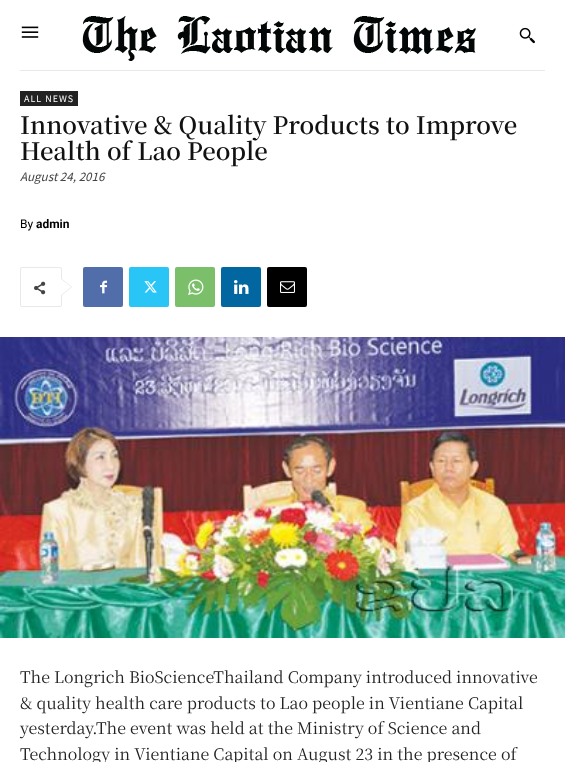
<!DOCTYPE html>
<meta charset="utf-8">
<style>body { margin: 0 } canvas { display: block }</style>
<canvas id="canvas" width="565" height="762"></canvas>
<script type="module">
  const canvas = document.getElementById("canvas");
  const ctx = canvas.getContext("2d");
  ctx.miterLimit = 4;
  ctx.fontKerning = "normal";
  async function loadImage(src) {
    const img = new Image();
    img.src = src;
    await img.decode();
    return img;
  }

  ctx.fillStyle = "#ffffff";
  ctx.fillRect(0, 0, 565, 762);
  ctx.fillStyle = "#e8e8e8";
  ctx.fillRect(20, 70, 525, 1);
  ctx.drawImage(await loadImage("img1.png"), 21, 26, 18, 12);
  ctx.drawImage(await loadImage("img2.png"), 82, 16, 394, 45);
  ctx.drawImage(await loadImage("img3.png"), 519, 27, 16, 17);
  ctx.fillStyle = "#222222";
  ctx.fillRect(20, 91, 58, 15);
  ctx.letterSpacing = "1px";
  ctx.font = "10px Source Sans Pro";
  ctx.fillStyle = "#ffffff";
  ctx.fillText("ALL NEWS", 24, 102);
  ctx.letterSpacing = "0px";
  ctx.font = "600 24px Noto Serif JP";
  ctx.fillStyle = "#111111";
  ctx.fillText("Innovative & Quality Products to Improve", 20, 134);
  ctx.fillText("Health of Lao People", 20, 160);
  ctx.font = "italic 13px Source Sans Pro";
  ctx.fillStyle = "#444444";
  ctx.fillText("August 24, 2016", 20, 181);
  ctx.font = "12px Roboto";
  ctx.fillStyle = "#000000";
  ctx.fillText("By", 20, 228);
  ctx.font = "bold 12px Roboto";
  ctx.fillText("admin", 36, 228);
  ctx.beginPath();
  ctx.roundRect(20.5, 267.5, 41, 39, 1.5);
  ctx.strokeStyle = "#e9e9e9";
  ctx.stroke();
  ctx.fillStyle = "#e9e9e9";
  ctx.beginPath();
  ctx.moveTo(61, 296);
  ctx.lineTo(61, 278);
  ctx.lineTo(72, 287);
  ctx.closePath();
  ctx.fill();
  ctx.drawImage(await loadImage("img4.png"), 34, 281, 12, 14);
  ctx.fillStyle = "#ffffff";
  ctx.beginPath();
  ctx.moveTo(61, 295);
  ctx.lineTo(61, 279);
  ctx.lineTo(71, 287);
  ctx.closePath();
  ctx.fill();
  ctx.fillStyle = "#516eab";
  ctx.beginPath();
  ctx.roundRect(83, 267, 40, 40, 2);
  ctx.fill();
  ctx.drawImage(await loadImage("img5.png"), 100, 280, 7, 14);
  ctx.fillStyle = "#29c5f6";
  ctx.beginPath();
  ctx.roundRect(129, 267, 40, 40, 2);
  ctx.fill();
  ctx.drawImage(await loadImage("img6.png"), 144, 281, 13, 12);
  ctx.fillStyle = "#7bbf6a";
  ctx.beginPath();
  ctx.roundRect(175, 267, 40, 40, 2);
  ctx.fill();
  ctx.drawImage(await loadImage("img7.png"), 188, 279, 16, 16);
  ctx.fillStyle = "#0266a0";
  ctx.beginPath();
  ctx.roundRect(221, 267, 40, 40, 2);
  ctx.fill();
  ctx.drawImage(await loadImage("img8.png"), 234, 280, 15, 14);
  ctx.fillStyle = "#000000";
  ctx.beginPath();
  ctx.roundRect(267, 267, 40, 40, 2);
  ctx.fill();
  ctx.drawImage(await loadImage("img9.png"), 280, 281, 15, 12);
  ctx.drawImage(await loadImage("img10.png"), 0, 337, 565, 301);
  ctx.font = "16px Noto Serif JP";
  ctx.fillStyle = "#222222";
  ctx.fillText("The Longrich BioScienceThailand Company introduced innovative", 20, 683);
  ctx.fillText("& quality health care products to Lao people in Vientiane Capital", 20, 709);
  ctx.fillText("yesterday.", 20, 734);
  ctx.fillText("The event was held at the Ministry of Science and", 96, 734);
  ctx.fillText("Technology in Vientiane Capital on August 23 in the presence of", 20, 760);
</script>
